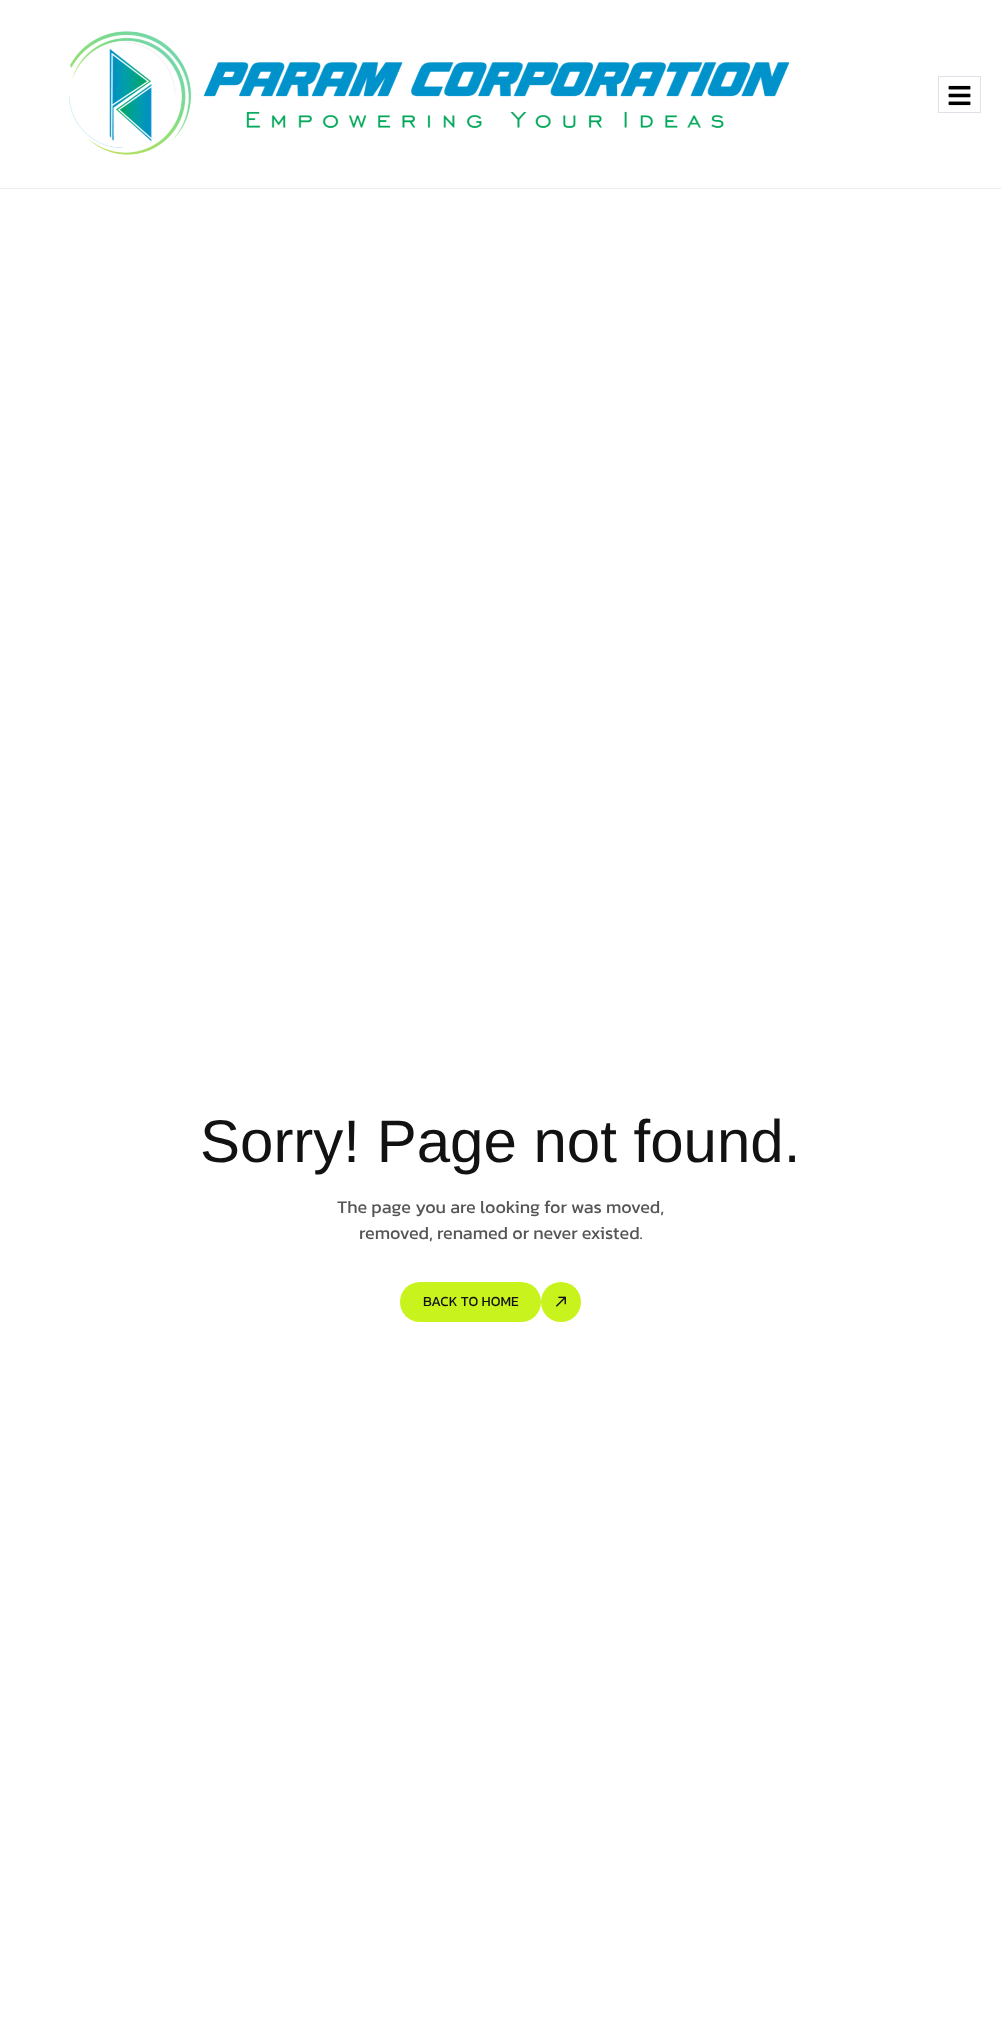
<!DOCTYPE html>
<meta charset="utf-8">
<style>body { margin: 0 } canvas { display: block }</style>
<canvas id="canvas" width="1001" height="2032"></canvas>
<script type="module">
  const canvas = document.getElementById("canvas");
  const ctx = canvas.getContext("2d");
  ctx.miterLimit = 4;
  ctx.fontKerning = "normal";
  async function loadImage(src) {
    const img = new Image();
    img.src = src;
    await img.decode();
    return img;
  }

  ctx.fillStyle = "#ffffff";
  ctx.fillRect(0, 0, 1001, 2032);
  ctx.fillStyle = "#ececec";
  ctx.fillRect(0, 188, 1001, 1);
  ctx.drawImage(await loadImage("img1.png"), 69, 31, 721, 124);
  ctx.strokeStyle = "#dee1e7";
  ctx.strokeRect(938.5, 76.5, 42, 36);
  ctx.drawImage(await loadImage("img2.png"), 948, 85, 23, 21);
  ctx.font = "60px Liberation Sans";
  ctx.fillStyle = "#121212";
  ctx.fillText("Sorry! Page not found.", 200, 1162);
  ctx.font = "18px Kanit";
  ctx.fillStyle = "#555555";
  ctx.fillText("The page you are looking for was moved,", 337, 1213);
  ctx.fillText("removed, renamed or never existed.", 359, 1239);
  ctx.fillStyle = "#c9f31d";
  ctx.beginPath();
  ctx.roundRect(400, 1282, 141, 40, 20);
  ctx.fill();
  ctx.font = "14px Kanit";
  ctx.fillStyle = "#121212";
  ctx.fillText("BACK TO HOME", 423, 1306);
  ctx.fillStyle = "#c9f31d";
  ctx.beginPath();
  ctx.arc(561, 1302, 20, 0, Math.PI * 2);
  ctx.fill();
  ctx.drawImage(await loadImage("img3.png"), 556, 1296, 10, 11);
</script>
